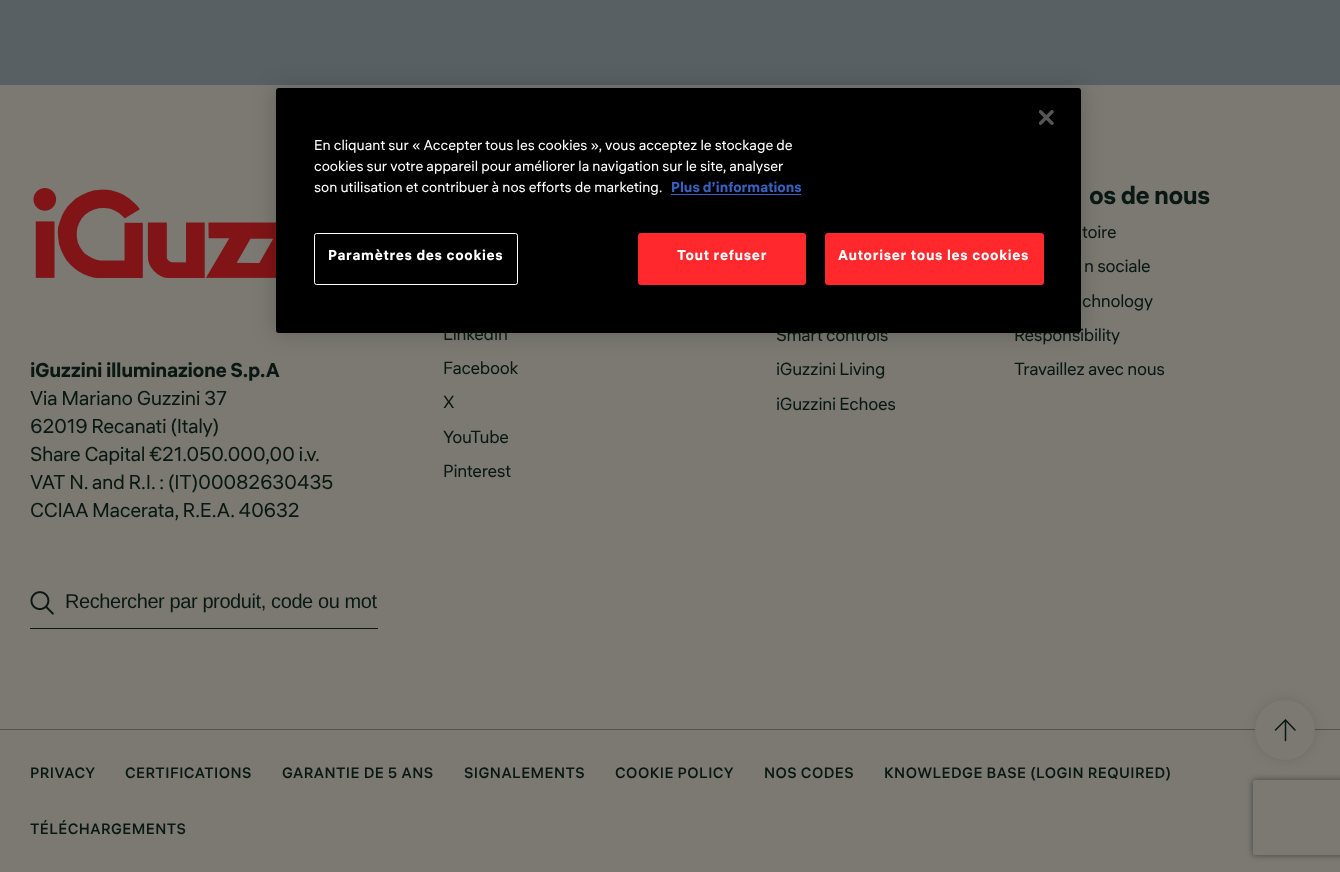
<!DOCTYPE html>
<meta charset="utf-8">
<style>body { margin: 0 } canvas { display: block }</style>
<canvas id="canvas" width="1340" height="872"></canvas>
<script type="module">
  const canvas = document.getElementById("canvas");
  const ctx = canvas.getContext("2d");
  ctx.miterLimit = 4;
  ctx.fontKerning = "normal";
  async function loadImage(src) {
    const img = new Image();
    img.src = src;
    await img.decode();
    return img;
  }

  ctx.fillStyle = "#586064";
  ctx.fillRect(0, 0, 1340, 872);
  ctx.fillStyle = "#7b7972";
  ctx.fillRect(0, 85, 1340, 787);
  ctx.drawImage(await loadImage("img2.png"), 33, 188, 243, 90);
  ctx.fillStyle = "rgba(0, 0, 0, 0.2)";
  ctx.filter = "blur(11px)";
  ctx.beginPath();
  ctx.roundRect(276, 88, 805, 245, 3);
  ctx.fill();
  ctx.filter = "none";
  ctx.letterSpacing = "-0.3px";
  ctx.font = "17.5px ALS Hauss";
  ctx.fillStyle = "#091812";
  ctx.fillText("Responsibility", 1014, 341);
  ctx.fillText("LinkedIn", 443, 340);
  ctx.fillText("Smart controls", 776, 341);
  ctx.fillStyle = "#000000";
  ctx.beginPath();
  ctx.roundRect(276, 88, 805, 245, 3);
  ctx.fill();
  ctx.drawImage(await loadImage("img1.png"), 1039, 110, 15, 15);
  ctx.letterSpacing = "0px";
  ctx.font = "14.25px ALS Hauss";
  ctx.fillStyle = "#ffffff";
  ctx.fillText("En cliquant sur « Accepter tous les cookies », vous acceptez le stockage de", 314, 150);
  ctx.fillText("cookies sur votre appareil pour améliorer la navigation sur le site, analyser", 314, 171);
  ctx.fillText("son utilisation et contribuer à nos efforts de marketing.", 314, 192);
  ctx.font = "bold 14.25px ALS Hauss";
  ctx.fillStyle = "#3860be";
  ctx.fillText("Plus d’informations", 671, 192);
  ctx.fillRect(671, 194, 130, 1);
  ctx.beginPath();
  ctx.roundRect(314.5, 233.5, 203, 51, 2);
  ctx.strokeStyle = "#ffffff";
  ctx.stroke();
  ctx.letterSpacing = "0.7px";
  ctx.fillStyle = "#ffffff";
  ctx.fillText("Paramètres des cookies", 328, 260);
  ctx.fillStyle = "#ff282d";
  ctx.beginPath();
  ctx.roundRect(638.5, 233.5, 167, 51, 2);
  ctx.fill();
  ctx.strokeStyle = "#ff282d";
  ctx.stroke();
  ctx.fillStyle = "#ffffff";
  ctx.fillText("Tout refuser", 677, 260);
  ctx.fillStyle = "#ff282d";
  ctx.beginPath();
  ctx.roundRect(825.5, 233.5, 218, 51, 2);
  ctx.fill();
  ctx.stroke();
  ctx.fillStyle = "#ffffff";
  ctx.fillText("Autoriser tous les cookies", 838, 260);
  ctx.fillStyle = "#525252";
  ctx.fillRect(0, 729, 1340, 1);
  ctx.letterSpacing = "-0.4px";
  ctx.font = "bold 20px ALS Hauss";
  ctx.fillStyle = "#091812";
  ctx.fillText("iGuzzini illuminazione S.p.A", 30, 377);
  ctx.font = "20px ALS Hauss";
  ctx.fillText("Via Mariano Guzzini 37", 30, 405);
  ctx.fillText("62019 Recanati (Italy)", 30, 433);
  ctx.fillText("Share Capital €21.050.000,00 i.v.", 30, 461);
  ctx.fillText("VAT N. and R.I. : (IT)00082630435", 30, 489);
  ctx.fillText("CCIAA Macerata, R.E.A. 40632", 30, 517);
  ctx.fillRect(30, 628, 348, 1);
  ctx.drawImage(await loadImage("img3.png"), 30, 591, 24, 24);
  ctx.font = "20px Liberation Sans";
  ctx.fillText("Rechercher par produit, code ou mot", 65, 608);
  ctx.letterSpacing = "-0.5px";
  ctx.font = "bold 25px ALS Hauss";
  ctx.fillText("os de nous", 1089, 204);
  ctx.letterSpacing = "-0.3px";
  ctx.font = "17.5px ALS Hauss";
  ctx.fillText("toire", 1082, 238);
  ctx.fillText("n sociale", 1084, 272);
  ctx.fillText("chnology", 1082, 307);
  ctx.fillText("Travaillez avec nous", 1014, 375);
  ctx.fillText("Facebook", 443, 374);
  ctx.fillText("X", 443, 408);
  ctx.fillText("YouTube", 443, 443);
  ctx.fillText("Pinterest", 443, 477);
  ctx.fillText("iGuzzini Living", 776, 375);
  ctx.fillText("iGuzzini Echoes", 776, 410);
  ctx.letterSpacing = "0.45px";
  ctx.font = "500 15px ALS Hauss";
  ctx.fillText("PRIVACY", 30, 778);
  ctx.fillText("CERTIFICATIONS", 125, 778);
  ctx.fillText("GARANTIE DE 5 ANS", 282, 778);
  ctx.fillText("SIGNALEMENTS", 464, 778);
  ctx.fillText("COOKIE POLICY", 615, 778);
  ctx.fillText("NOS CODES", 764, 778);
  ctx.fillText("KNOWLEDGE BASE (LOGIN REQUIRED)", 884, 778);
  ctx.fillText("TÉLÉCHARGEMENTS", 30, 834);
  ctx.fillStyle = "rgba(0, 0, 0, 0.1)";
  ctx.filter = "blur(6px)";
  ctx.beginPath();
  ctx.roundRect(1255, 700, 60, 60, 30);
  ctx.fill();
  ctx.filter = "none";
  ctx.fillStyle = "#7b7972";
  ctx.beginPath();
  ctx.arc(1285, 730, 30, 0, Math.PI * 2);
  ctx.fill();
  ctx.beginPath();
  ctx.moveTo(1295, 730);
  ctx.lineTo(1285.5, 720);
  ctx.moveTo(1285.5, 720);
  ctx.lineTo(1275.5, 730);
  ctx.moveTo(1285.5, 720);
  ctx.lineTo(1285.5, 740.5);
  ctx.strokeStyle = "#091812";
  ctx.lineWidth = 1.5;
  ctx.lineCap = "round";
  ctx.lineJoin = "round";
  ctx.stroke();
  ctx.save();
  ctx.beginPath();
  ctx.moveTo(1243, 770);
  ctx.lineTo(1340, 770);
  ctx.lineTo(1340, 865);
  ctx.lineTo(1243, 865);
  ctx.closePath();
  ctx.moveTo(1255.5, 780);
  ctx.lineTo(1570.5, 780);
  ctx.bezierCurveTo(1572, 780, 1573, 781, 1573, 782.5);
  ctx.lineTo(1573, 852.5);
  ctx.bezierCurveTo(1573, 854, 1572, 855, 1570.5, 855);
  ctx.lineTo(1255.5, 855);
  ctx.bezierCurveTo(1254, 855, 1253, 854, 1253, 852.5);
  ctx.lineTo(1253, 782.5);
  ctx.bezierCurveTo(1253, 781, 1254, 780, 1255.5, 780);
  ctx.closePath();
  ctx.clip("evenodd");
  ctx.fillStyle = "#404040";
  ctx.filter = "blur(3px)";
  ctx.beginPath();
  ctx.roundRect(1253, 780, 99, 75, 2.5);
  ctx.fill();
  ctx.filter = "none";
  ctx.restore();
</script>
